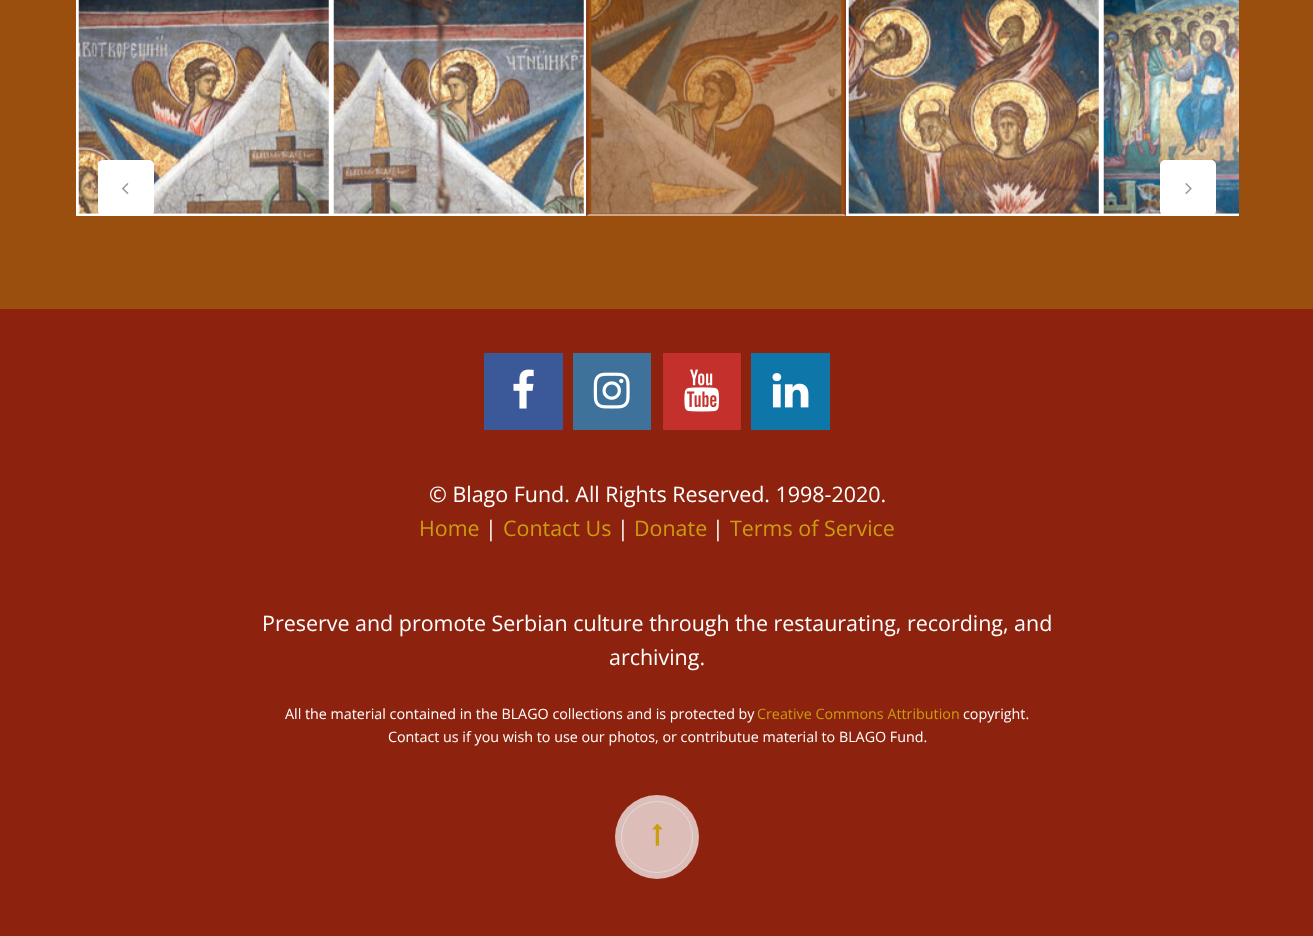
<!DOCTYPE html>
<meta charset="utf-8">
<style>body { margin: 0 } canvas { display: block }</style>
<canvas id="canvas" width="1313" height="936"></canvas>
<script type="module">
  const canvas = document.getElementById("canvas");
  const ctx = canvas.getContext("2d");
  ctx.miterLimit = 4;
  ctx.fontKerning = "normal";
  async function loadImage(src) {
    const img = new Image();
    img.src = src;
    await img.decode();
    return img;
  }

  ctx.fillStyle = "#9b4f0f";
  ctx.fillRect(0, 0, 1313, 936);
  ctx.strokeStyle = "#ffffff";
  ctx.lineWidth = 3;
  ctx.strokeRect(77.5, -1.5, 252, 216);
  ctx.drawImage(await loadImage("img1.png"), 78, 0, 251, 214);
  ctx.strokeRect(332.5, -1.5, 252, 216);
  ctx.drawImage(await loadImage("img2.png"), 333, 0, 251, 214);
  ctx.fillStyle = "#894121";
  ctx.beginPath();
  ctx.moveTo(846, -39);
  ctx.lineTo(846, 216);
  ctx.lineTo(844, 214);
  ctx.lineTo(844, -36);
  ctx.closePath();
  ctx.fill();
  ctx.fillStyle = "#cda787";
  ctx.beginPath();
  ctx.moveTo(846, 216);
  ctx.lineTo(586, 216);
  ctx.lineTo(589, 214);
  ctx.lineTo(844, 214);
  ctx.closePath();
  ctx.fill();
  ctx.fillStyle = "#894121";
  ctx.beginPath();
  ctx.moveTo(586, 216);
  ctx.lineTo(586, -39);
  ctx.lineTo(589, -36);
  ctx.lineTo(589, 214);
  ctx.closePath();
  ctx.fill();
  ctx.drawImage(await loadImage("img3.png"), 591, 0, 251, 214);
  ctx.strokeRect(847.5, -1.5, 252, 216);
  ctx.drawImage(await loadImage("img4.png"), 848, 0, 251, 214);
  ctx.save();
  ctx.beginPath();
  ctx.rect(76, 0, 1163, 216);
  ctx.clip();
  ctx.strokeRect(1102.5, -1.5, 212, 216);
  ctx.restore();
  ctx.drawImage(await loadImage("img5.png"), 1103, 0, 136, 214);
  ctx.fillStyle = "#ffffff";
  ctx.beginPath();
  ctx.roundRect(98, 160, 56, 56, 5);
  ctx.fill();
  ctx.drawImage(await loadImage("img6.png"), 122, 183, 7, 12);
  ctx.beginPath();
  ctx.roundRect(1160, 160, 56, 56, 5);
  ctx.fill();
  ctx.drawImage(await loadImage("img7.png"), 1185, 183, 7, 12);
  ctx.fillStyle = "#8d230f";
  ctx.fillRect(0, 309, 1313, 627);
  ctx.fillStyle = "#3b5998";
  ctx.fillRect(484, 353, 79, 77);
  ctx.drawImage(await loadImage("img8.png"), 513, 369, 21, 40);
  ctx.fillStyle = "#3f729b";
  ctx.fillRect(573, 353, 78, 77);
  ctx.drawImage(await loadImage("img9.png"), 593, 372, 37, 37);
  ctx.fillStyle = "#c4302b";
  ctx.fillRect(663, 353, 78, 77);
  ctx.drawImage(await loadImage("img10.png"), 684, 369, 36, 43);
  ctx.fillStyle = "#0e76a8";
  ctx.fillRect(751, 353, 79, 77);
  ctx.drawImage(await loadImage("img11.png"), 772, 373, 37, 35);
  ctx.font = "21.45px Open Sans";
  ctx.fillStyle = "#ffffff";
  ctx.fillText("© Blago Fund. All Rights Reserved. 1998-2020.", 429, 502);
  ctx.fillStyle = "#c99e10";
  ctx.fillText("Home", 419, 536);
  ctx.fillStyle = "#ffffff";
  ctx.fillText("|", 485, 536);
  ctx.fillStyle = "#c99e10";
  ctx.fillText("Contact Us", 503, 536);
  ctx.fillStyle = "#ffffff";
  ctx.fillText("|", 617, 536);
  ctx.fillStyle = "#c99e10";
  ctx.fillText("Donate", 634, 536);
  ctx.fillStyle = "#ffffff";
  ctx.fillText("|", 712, 536);
  ctx.fillStyle = "#c99e10";
  ctx.fillText("Terms of Service", 730, 536);
  ctx.fillStyle = "#ffffff";
  ctx.fillText("Preserve and promote Serbian culture through the restaurating, recording, and", 262, 631);
  ctx.fillText("archiving.", 609, 665);
  ctx.font = "14.3px Open Sans";
  ctx.fillText("All the material contained in the BLAGO collections and is protected by", 285, 719);
  ctx.fillStyle = "#c99e10";
  ctx.fillText("Creative Commons Attribution", 757, 719);
  ctx.fillStyle = "#ffffff";
  ctx.fillText("copyright.", 963, 719);
  ctx.fillText("Contact us if you wish to use our photos, or contributue material to BLAGO Fund.", 388, 742);
  ctx.fillStyle = "#ddbdb7";
  ctx.beginPath();
  ctx.arc(657, 837, 42, 0, Math.PI * 2);
  ctx.fill();
  ctx.beginPath();
  ctx.arc(657, 837, 35.5, 0, Math.PI * 2);
  ctx.strokeStyle = "#dddddd";
  ctx.lineWidth = 1;
  ctx.stroke();
  ctx.drawImage(await loadImage("img12.png"), 652, 823, 11, 23);
</script>
